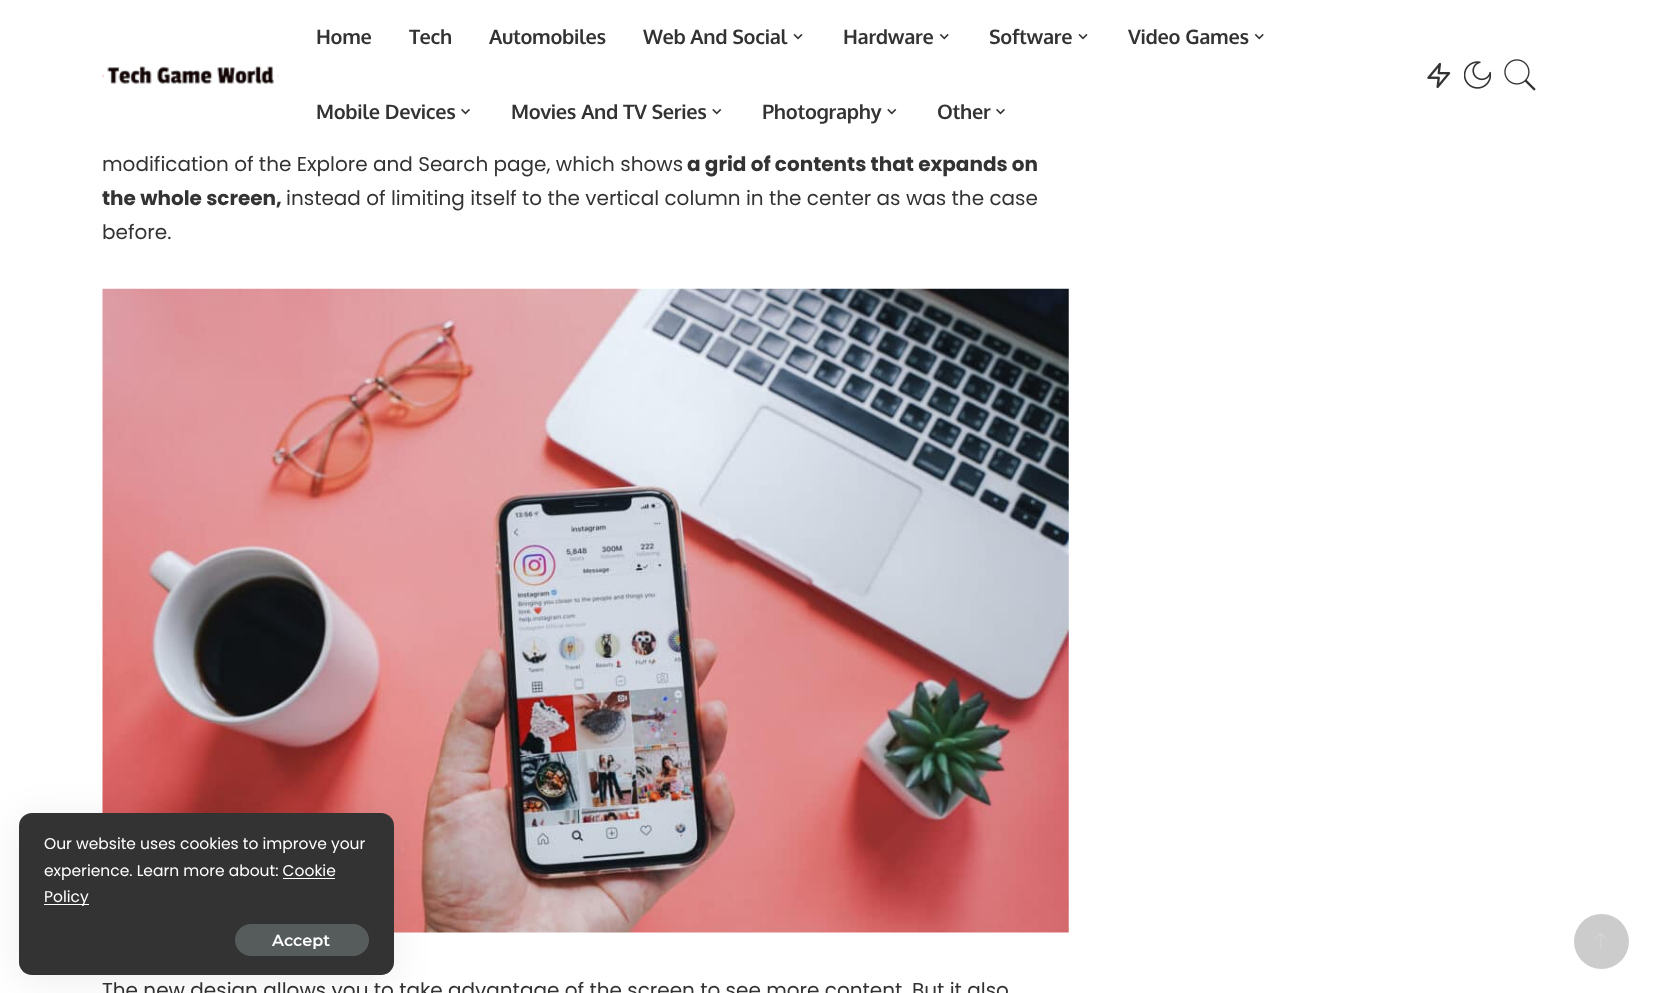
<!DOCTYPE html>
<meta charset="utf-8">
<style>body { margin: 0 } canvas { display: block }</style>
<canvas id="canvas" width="1653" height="993"></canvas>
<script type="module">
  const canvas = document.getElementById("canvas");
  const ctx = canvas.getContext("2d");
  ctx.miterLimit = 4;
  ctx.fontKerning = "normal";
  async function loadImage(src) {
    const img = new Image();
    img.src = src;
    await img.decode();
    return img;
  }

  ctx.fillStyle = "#ffffff";
  ctx.fillRect(0, 0, 1653, 993);
  ctx.drawImage(await loadImage("img1.png"), 102, 66, 177, 18);
  ctx.letterSpacing = "-0.3px";
  ctx.font = "bold 20px Oxygen";
  ctx.fillStyle = "#333333";
  ctx.fillText("Home", 316, 44);
  ctx.fillText("Tech", 409, 44);
  ctx.fillText("Automobiles", 489, 44);
  ctx.fillText("Web And Social", 643, 44);
  ctx.drawImage(await loadImage("img2.png"), 793, 33, 10, 7);
  ctx.fillText("Hardware", 843, 44);
  ctx.drawImage(await loadImage("img3.png"), 939, 33, 10, 7);
  ctx.fillText("Software", 989, 44);
  ctx.drawImage(await loadImage("img2.png"), 1078, 33, 10, 7);
  ctx.fillText("Video Games", 1128, 44);
  ctx.drawImage(await loadImage("img3.png"), 1254, 33, 10, 7);
  ctx.fillText("Mobile Devices", 316, 119);
  ctx.drawImage(await loadImage("img4.png"), 461, 108, 9, 7);
  ctx.fillText("Movies And TV Series", 511, 119);
  ctx.drawImage(await loadImage("img5.png"), 712, 108, 10, 7);
  ctx.fillText("Photography", 762, 119);
  ctx.drawImage(await loadImage("img5.png"), 887, 108, 10, 7);
  ctx.fillText("Other", 937, 119);
  ctx.drawImage(await loadImage("img4.png"), 996, 108, 9, 7);
  ctx.drawImage(await loadImage("img6.png"), 1427, 62, 24, 26);
  ctx.drawImage(await loadImage("img7.png"), 1464, 61, 27, 28);
  ctx.drawImage(await loadImage("img8.png"), 1504, 59, 32, 32);
  ctx.letterSpacing = "0px";
  ctx.font = "20px Poppins";
  ctx.fillText("modification of the Explore and Search page, which shows", 102, 171);
  ctx.font = "bold 20px Poppins";
  ctx.fillText("a grid of contents that expands on", 687, 171);
  ctx.fillText("the whole screen,", 102, 205);
  ctx.font = "20px Poppins";
  ctx.fillText("instead of limiting itself to the vertical column in the center as was the case", 286, 205);
  ctx.fillText("before.", 102, 239);
  ctx.drawImage(await loadImage("img9.png"), 102, 288, 967, 645);
  ctx.fillText("The new design allows you to take advantage of the screen to see more content", 102, 997);
  ctx.fillText("But it also", 912, 997);
  ctx.fillStyle = "rgba(0, 0, 0, 0.07)";
  ctx.filter = "blur(19px)";
  ctx.beginPath();
  ctx.roundRect(19, 818, 375, 162, 13);
  ctx.fill();
  ctx.filter = "none";
  ctx.fillStyle = "#333333";
  ctx.beginPath();
  ctx.roundRect(19, 813, 375, 162, 13);
  ctx.fill();
  ctx.font = "15.5px Poppins";
  ctx.fillStyle = "#ffffff";
  ctx.fillText("Our website uses cookies to improve your", 44, 849);
  ctx.fillText("experience. Learn more about: Cookie", 44, 876);
  ctx.fillRect(44, 904, 45, 1);
  ctx.fillText("Policy", 44, 902);
  ctx.fillRect(283, 878, 52, 1);
  ctx.fillStyle = "#565c5c";
  ctx.beginPath();
  ctx.roundRect(235, 924, 134, 32, 16);
  ctx.fill();
  ctx.font = "600 16px Montserrat";
  ctx.fillStyle = "#ffffff";
  ctx.fillText("Accept", 272, 946);
  ctx.fillStyle = "#cccccc";
  ctx.beginPath();
  ctx.arc(1601.5, 941.5, 27.5, 0, Math.PI * 2);
  ctx.fill();
  ctx.drawImage(await loadImage("img10.png"), 1595, 933, 12, 16);
</script>
